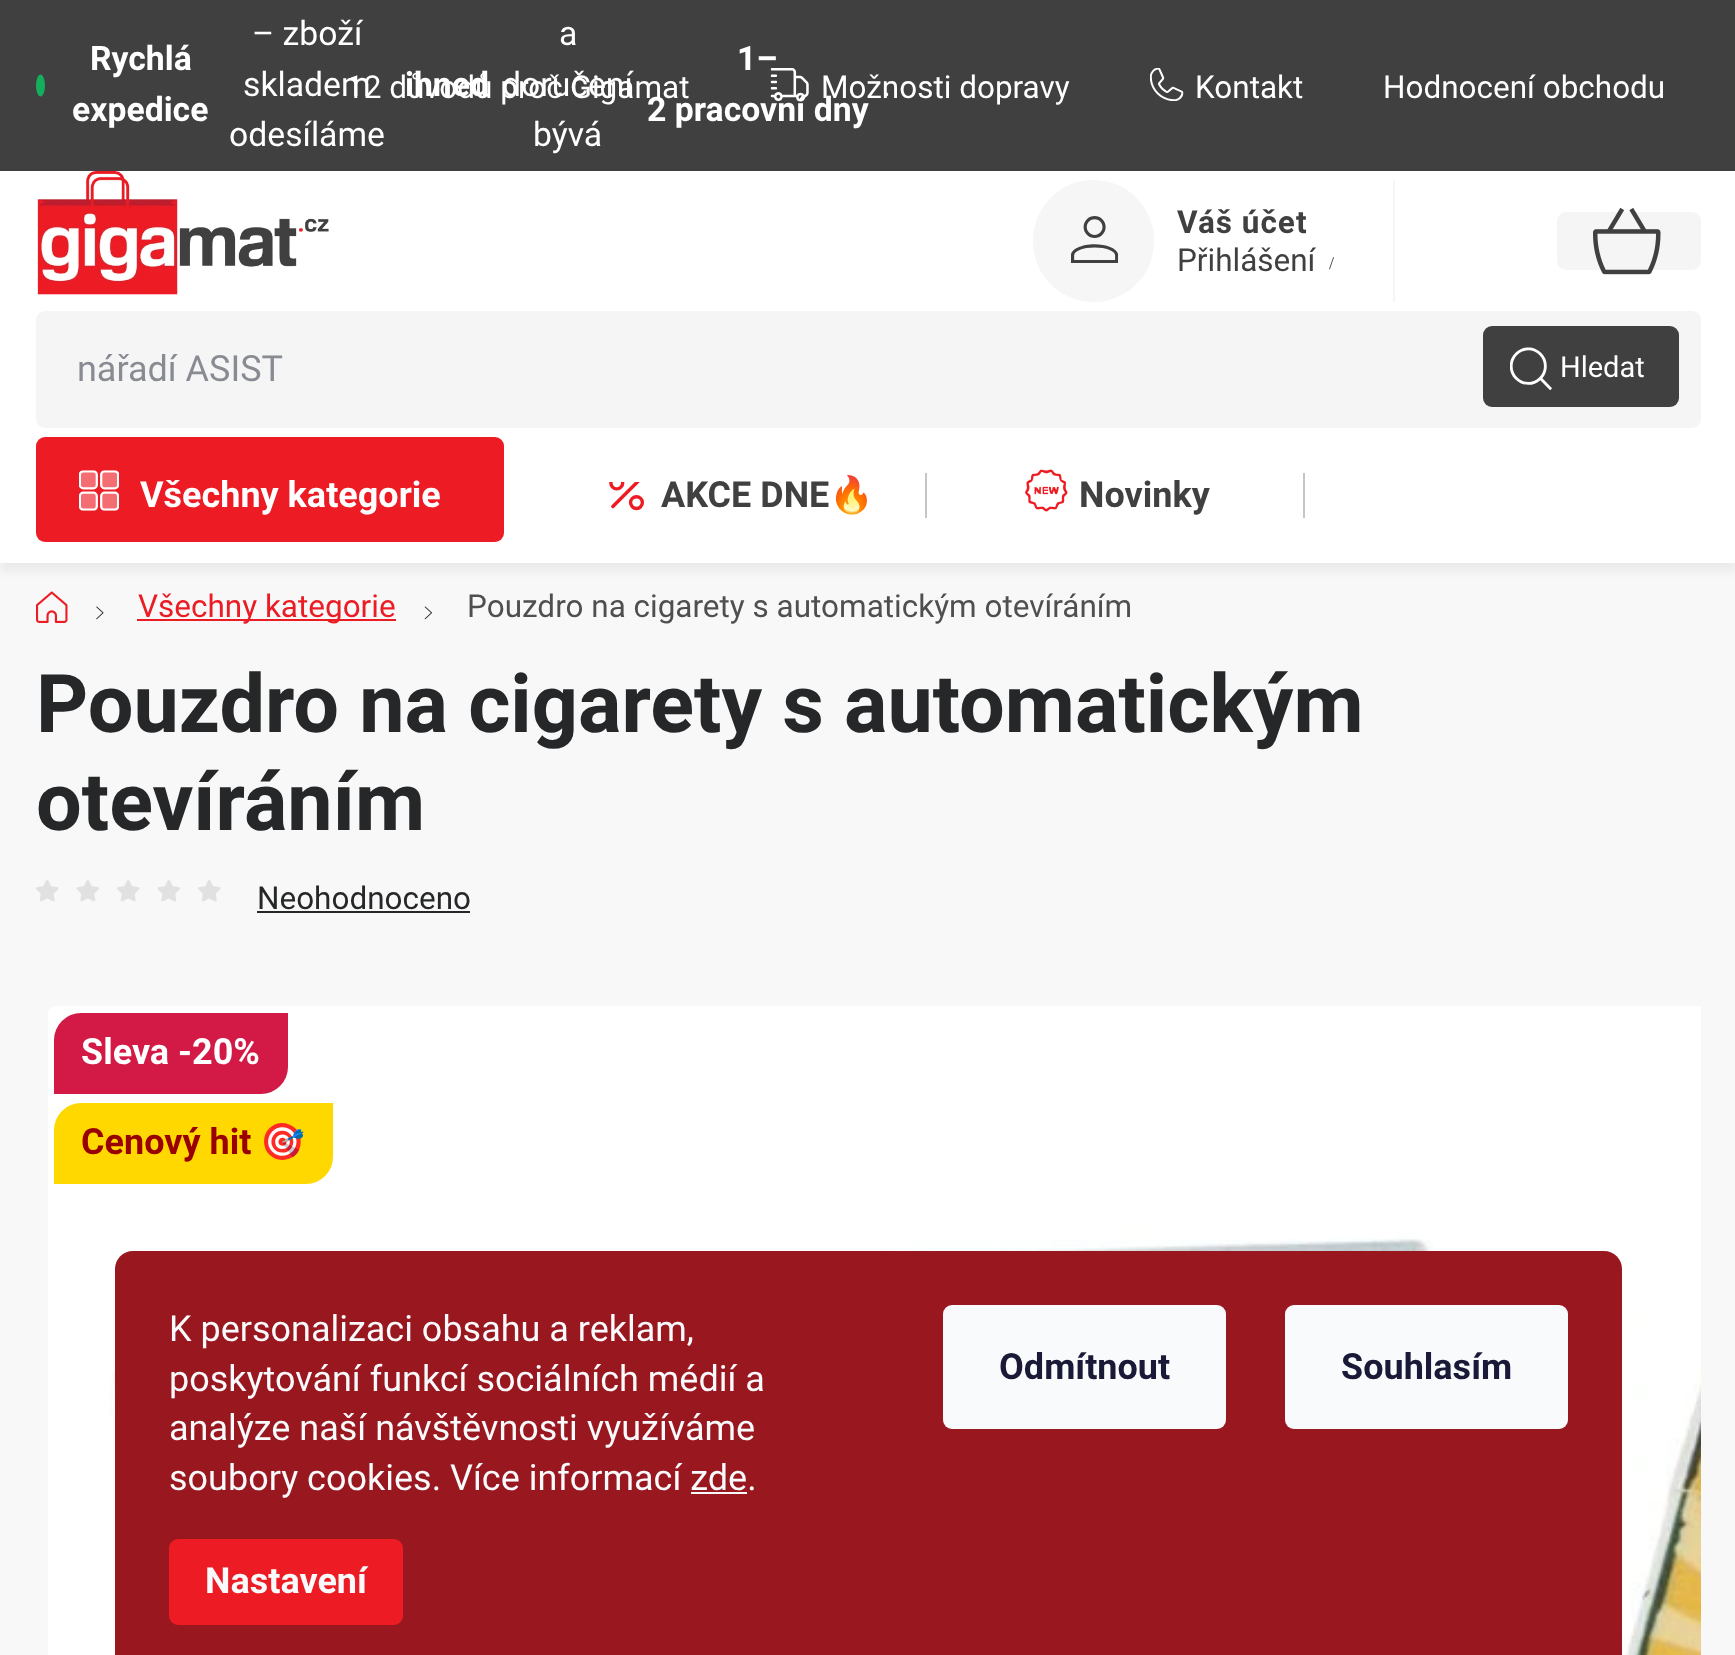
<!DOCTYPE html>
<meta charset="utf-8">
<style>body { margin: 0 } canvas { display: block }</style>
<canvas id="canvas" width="1735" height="1655"></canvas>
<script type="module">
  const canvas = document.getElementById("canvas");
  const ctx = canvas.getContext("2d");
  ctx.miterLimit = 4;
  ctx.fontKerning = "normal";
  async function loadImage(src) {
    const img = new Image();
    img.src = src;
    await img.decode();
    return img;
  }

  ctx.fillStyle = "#f8f8f9";
  ctx.fillRect(0, 0, 1735, 1655);
  ctx.fillStyle = "#404040";
  ctx.fillRect(0, 0, 1735, 171);
  ctx.font = "33.75px Roboto";
  ctx.fillStyle = "#ffffff";
  ctx.fillText("– zboží", 252, 45);
  ctx.fillText("a", 559, 45);
  ctx.fillStyle = "#14ae5c";
  ctx.beginPath();
  ctx.ellipse(40.5, 85.5, 4.5, 11, 0, 0, Math.PI * 2);
  ctx.fill();
  ctx.font = "bold 33.75px Roboto";
  ctx.fillStyle = "#ffffff";
  ctx.fillText("Rychlá", 90, 70);
  ctx.fillText("expedice", 72, 121);
  ctx.font = "33.75px Roboto";
  ctx.fillText("skladem", 243, 96);
  ctx.font = "bold 33.75px Roboto";
  ctx.fillText("ihned", 405, 96);
  ctx.font = "33.75px Roboto";
  ctx.fillText("doručení", 502, 96);
  ctx.font = "bold 33.75px Roboto";
  ctx.fillText("1–", 737, 70);
  ctx.fillText("2 pracovní dny", 647, 121);
  ctx.font = "33.75px Roboto";
  ctx.fillText(".", 882, 96);
  ctx.fillText("odesíláme", 229, 146);
  ctx.fillText("bývá", 533, 146);
  ctx.save();
  ctx.beginPath();
  ctx.rect(351, 36, 1350, 99);
  ctx.clip();
  ctx.font = "31.5px Roboto";
  ctx.fillText("12 důvodů proč Gigamat", 346, 98);
  ctx.restore();
  ctx.drawImage(await loadImage("img1.png"), 770, 68, 39, 34);
  ctx.font = "31.5px Roboto";
  ctx.fillText("Možnosti dopravy", 821, 98);
  ctx.drawImage(await loadImage("img2.png"), 1150, 68, 34, 33);
  ctx.fillText("Kontakt", 1195, 98);
  ctx.fillText("Hodnocení obchodu", 1383, 98);
  ctx.fillRect(0, 171, 1735, 257);
  ctx.drawImage(await loadImage("img3.png"), 37, 171, 292, 124);
  ctx.fillStyle = "#f6f6f6";
  ctx.fillRect(1393, 180, 2, 122);
  ctx.beginPath();
  ctx.roundRect(1033, 180, 121, 122, 60.5);
  ctx.fill();
  ctx.drawImage(await loadImage("img4.png"), 1071, 216, 47, 47);
  ctx.letterSpacing = "1px";
  ctx.font = "bold 31.5px Roboto";
  ctx.fillStyle = "#404040";
  ctx.fillText("Váš účet", 1177, 233);
  ctx.letterSpacing = "0px";
  ctx.font = "31.5px Roboto";
  ctx.fillText("Přihlášení", 1177, 271);
  ctx.font = "18px Liberation Serif";
  ctx.fillText("/", 1329, 269);
  ctx.fillStyle = "#f5f5f5";
  ctx.beginPath();
  ctx.roundRect(1557, 212, 144, 58, 9);
  ctx.fill();
  ctx.drawImage(await loadImage("img5.png"), 1593, 207, 68, 68);
  ctx.beginPath();
  ctx.roundRect(36, 311, 1665, 117, 9);
  ctx.fill();
  ctx.font = "36px Roboto";
  ctx.fillStyle = "#888c92";
  ctx.fillText("nářadí ASIST", 77, 381);
  ctx.fillStyle = "#404040";
  ctx.beginPath();
  ctx.roundRect(1483, 326, 196, 81, 9);
  ctx.fill();
  ctx.drawImage(await loadImage("img6.png"), 1510, 347, 42, 44);
  ctx.font = "29px Roboto";
  ctx.fillStyle = "#ffffff";
  ctx.fillText("Hledat", 1560, 377);
  ctx.fillStyle = "rgba(0, 0, 0, 0.05)";
  ctx.filter = "blur(4.5px)";
  ctx.beginPath();
  ctx.rect(0, 437, 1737, 135);
  ctx.fill();
  ctx.filter = "none";
  ctx.fillStyle = "#ffffff";
  ctx.fillRect(0, 428, 1735, 135);
  ctx.fillStyle = "#ec1b24";
  ctx.beginPath();
  ctx.roundRect(36, 437, 468, 105, 9);
  ctx.fill();
  ctx.drawImage(await loadImage("img7.png"), 79, 470, 40, 41);
  ctx.font = "bold 36px Roboto";
  ctx.fillStyle = "#ffffff";
  ctx.fillText("Všechny kategorie", 140, 507);
  ctx.drawImage(await loadImage("img8.png"), 609, 482, 35, 29);
  ctx.fillStyle = "#404040";
  ctx.fillText("AKCE DNE", 661, 507);
  ctx.font = "bold 36px Noto Color Emoji";
  ctx.fillText("🔥", 829, 507);
  ctx.fillStyle = "#c5c5c5";
  ctx.fillRect(925, 473, 2, 45);
  ctx.drawImage(await loadImage("img9.png"), 1025, 469, 43, 43);
  ctx.font = "bold 36px Roboto";
  ctx.fillStyle = "#404040";
  ctx.fillText("Novinky", 1079, 507);
  ctx.fillStyle = "#c5c5c5";
  ctx.fillRect(1303, 473, 2, 45);
  ctx.drawImage(await loadImage("img10.png"), 36, 591, 32, 32);
  ctx.drawImage(await loadImage("img11.png"), 96, 606, 8, 14);
  ctx.fillStyle = "#eb1c24";
  ctx.fillRect(137, 619, 259, 2);
  ctx.font = "31.5px Roboto";
  ctx.fillText("Všechny kategorie", 138, 617);
  ctx.drawImage(await loadImage("img12.png"), 424, 606, 9, 14);
  ctx.fillStyle = "#4f4f4f";
  ctx.fillText("Pouzdro na cigarety s automatickým otevíráním", 467, 617);
  ctx.font = "bold 81px Roboto";
  ctx.fillStyle = "#252729";
  ctx.fillText("Pouzdro na cigarety s automatickým", 36, 732);
  ctx.fillText("otevíráním", 36, 830);
  ctx.drawImage(await loadImage("img13.png"), 36, 880, 23, 22);
  ctx.drawImage(await loadImage("img14.png"), 76, 880, 23, 22);
  ctx.drawImage(await loadImage("img13.png"), 117, 880, 23, 22);
  ctx.drawImage(await loadImage("img14.png"), 157, 880, 23, 22);
  ctx.drawImage(await loadImage("img13.png"), 198, 880, 23, 22);
  ctx.font = "31.5px Roboto";
  ctx.fillText("Neohodnoceno", 257, 909);
  ctx.fillRect(257, 911, 213, 2);
  ctx.drawImage(await loadImage("img15.png"), 48, 1006, 1653, 649);
  ctx.fillStyle = "#d31945";
  ctx.beginPath();
  ctx.roundRect(54, 1013, 234, 81, [27, 0, 27, 0]);
  ctx.fill();
  ctx.font = "bold 36px Roboto";
  ctx.fillStyle = "#ffffff";
  ctx.fillText("Sleva -20%", 81, 1064);
  ctx.fillStyle = "#ffd800";
  ctx.beginPath();
  ctx.roundRect(54, 1103, 279, 81, [27, 0, 27, 0]);
  ctx.fill();
  ctx.fillStyle = "#990000";
  ctx.fillText("Cenový hit", 81, 1154);
  ctx.font = "bold 36px Noto Color Emoji";
  ctx.fillText("🎯", 260, 1154);
  ctx.fillStyle = "#99171f";
  ctx.beginPath();
  ctx.moveTo(133, 1251);
  ctx.lineTo(1604, 1251);
  ctx.bezierCurveTo(1614, 1251, 1622, 1259, 1622, 1269);
  ctx.lineTo(1622, 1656);
  ctx.lineTo(115, 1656);
  ctx.lineTo(115, 1269);
  ctx.bezierCurveTo(115, 1259, 123, 1251, 133, 1251);
  ctx.closePath();
  ctx.fill();
  ctx.font = "36px Roboto";
  ctx.fillStyle = "#f8fafb";
  ctx.fillText("K personalizaci obsahu a reklam,", 169, 1341);
  ctx.fillText("poskytování funkcí sociálních médií a", 169, 1391);
  ctx.fillText("analýze naší návštěvnosti využíváme", 169, 1440);
  ctx.fillText("soubory cookies. Více informací zde.", 169, 1490);
  ctx.fillRect(691, 1492, 56, 2);
  ctx.fillStyle = "#ec1b24";
  ctx.beginPath();
  ctx.roundRect(169, 1539, 234, 86, 9);
  ctx.fill();
  ctx.font = "bold 36px Roboto";
  ctx.fillStyle = "#f8fafb";
  ctx.fillText("Nastavení", 205, 1593);
  ctx.beginPath();
  ctx.roundRect(943, 1305, 283, 124, 9);
  ctx.fill();
  ctx.fillStyle = "#1a1937";
  ctx.fillText("Odmítnout", 999, 1379);
  ctx.fillStyle = "#f8fafb";
  ctx.beginPath();
  ctx.roundRect(1285, 1305, 283, 124, 9);
  ctx.fill();
  ctx.fillStyle = "#1a1937";
  ctx.fillText("Souhlasím", 1341, 1379);
</script>
